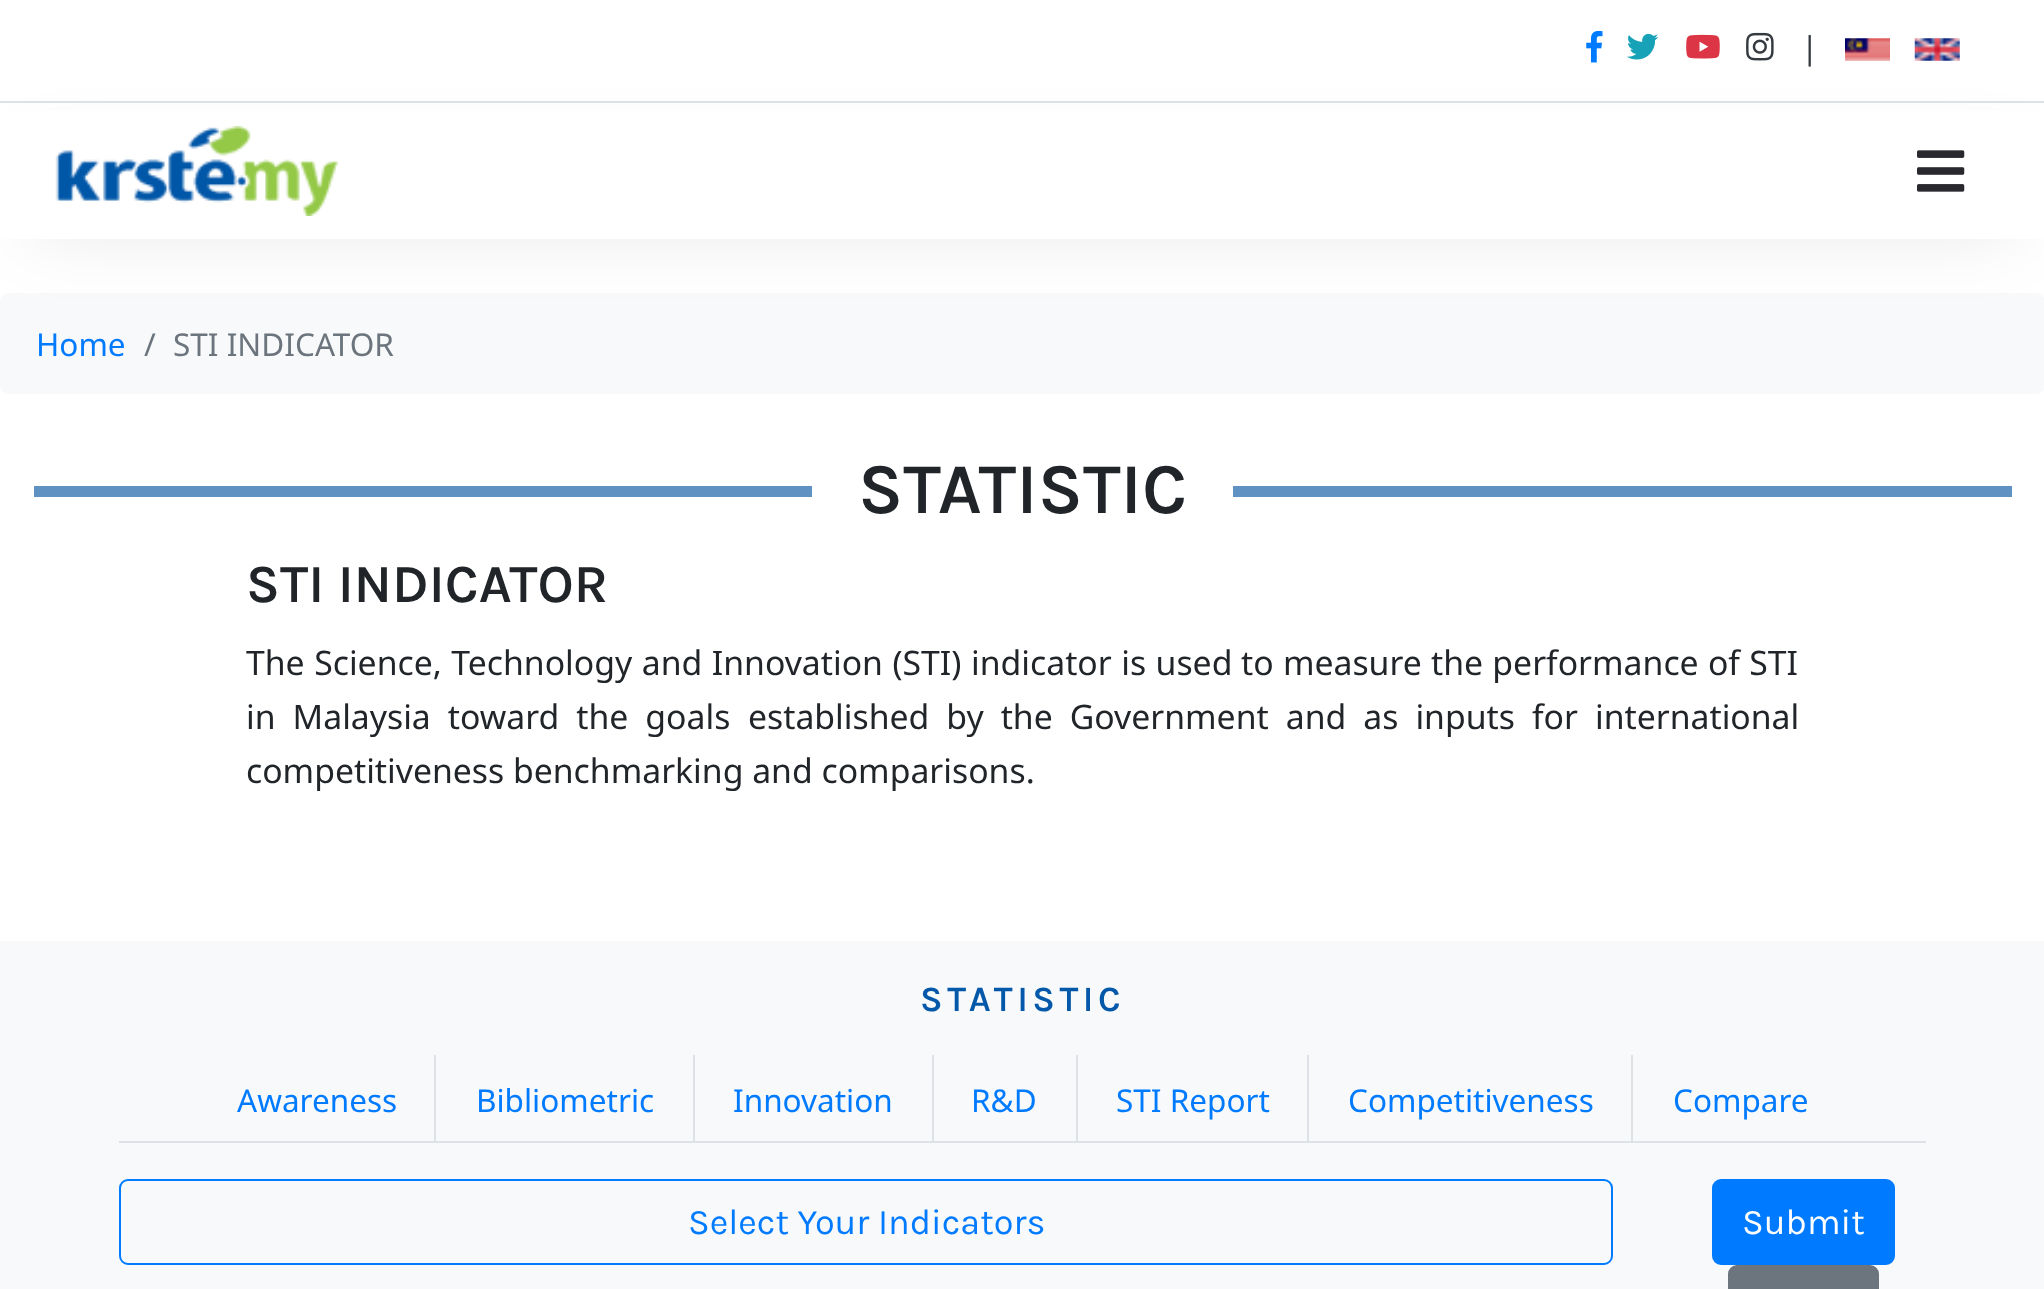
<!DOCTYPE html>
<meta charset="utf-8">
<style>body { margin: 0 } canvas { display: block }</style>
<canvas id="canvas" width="2044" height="1289"></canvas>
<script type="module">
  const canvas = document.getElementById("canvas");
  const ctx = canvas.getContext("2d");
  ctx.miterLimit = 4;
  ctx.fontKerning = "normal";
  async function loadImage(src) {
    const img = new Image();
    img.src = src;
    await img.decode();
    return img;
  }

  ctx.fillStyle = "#ffffff";
  ctx.fillRect(0, 0, 2044, 1289);
  ctx.fillStyle = "#dee2e6";
  ctx.fillRect(0, 101, 2044, 2);
  ctx.drawImage(await loadImage("img1.png"), 1586, 30, 17, 33);
  ctx.drawImage(await loadImage("img2.png"), 1627, 33, 31, 27);
  ctx.drawImage(await loadImage("img3.png"), 1686, 34, 34, 25);
  ctx.drawImage(await loadImage("img4.png"), 1746, 32, 28, 29);
  ctx.font = "31.5px Noto Sans";
  ctx.fillStyle = "#343a40";
  ctx.fillText("|", 1801, 59);
  ctx.drawImage(await loadImage("img5.png"), 1845, 38, 45, 23);
  ctx.drawImage(await loadImage("img6.png"), 1914, 38, 46, 23);
  ctx.fillStyle = "#f8f9fa";
  ctx.beginPath();
  ctx.roundRect(0, 293, 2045, 101, 9);
  ctx.fill();
  ctx.fillStyle = "rgba(0, 0, 0, 0.1)";
  ctx.filter = "blur(37px)";
  ctx.beginPath();
  ctx.rect(32, 158, 1982, 72);
  ctx.fill();
  ctx.filter = "none";
  ctx.fillStyle = "#ffffff";
  ctx.fillRect(0, 111, 2044, 128);
  ctx.drawImage(await loadImage("img7.png"), 55, 126, 284, 90);
  ctx.drawImage(await loadImage("img8.png"), 1917, 150, 48, 42);
  ctx.fillStyle = "#007bff";
  ctx.fillText("Home", 36, 356);
  ctx.fillStyle = "#6c757d";
  ctx.fillText("/", 144, 356);
  ctx.fillText("STI INDICATOR", 173, 356);
  ctx.fillStyle = "#5f92c2";
  ctx.fillRect(34, 486, 778, 11);
  ctx.font = "600 72px Karla";
  ctx.fillStyle = "#212529";
  ctx.fillText("STATISTIC", 858, 513);
  ctx.fillStyle = "#5f92c2";
  ctx.fillRect(1233, 486, 779, 11);
  ctx.font = "600 54px Karla";
  ctx.fillStyle = "#212529";
  ctx.fillText("STI INDICATOR", 246, 602);
  ctx.wordSpacing = "0.75px";
  ctx.font = "33.75px Noto Sans";
  ctx.fillText("The Science, Technology and Innovation (STI) indicator is used", 246, 675);
  ctx.wordSpacing = "0.5px";
  ctx.fillText("to measure the performance of STI", 1241, 675);
  ctx.wordSpacing = "8.25px";
  ctx.fillText("in Malaysia toward the goals", 246, 729);
  ctx.fillText("established by the Government and as inputs for international", 748, 729);
  ctx.wordSpacing = "0px";
  ctx.fillText("competitiveness benchmarking and comparisons.", 246, 783);
  ctx.fillStyle = "#f8f9fa";
  ctx.fillRect(0, 941, 2044, 348);
  ctx.letterSpacing = "4.5px";
  ctx.font = "600 36px Karla";
  ctx.fillStyle = "#0358a9";
  ctx.fillText("STATISTIC", 920, 1011);
  ctx.fillStyle = "#dee2e6";
  ctx.fillRect(119, 1141, 1807, 2);
  ctx.fillRect(434, 1055, 2, 88);
  ctx.letterSpacing = "0px";
  ctx.font = "31.5px Noto Sans";
  ctx.fillStyle = "#007bff";
  ctx.fillText("Awareness", 237, 1112);
  ctx.fillStyle = "#dee2e6";
  ctx.fillRect(693, 1055, 2, 88);
  ctx.fillStyle = "#007bff";
  ctx.fillText("Bibliometric", 476, 1112);
  ctx.fillStyle = "#dee2e6";
  ctx.fillRect(932, 1055, 2, 88);
  ctx.fillStyle = "#007bff";
  ctx.fillText("Innovation", 733, 1112);
  ctx.fillStyle = "#dee2e6";
  ctx.fillRect(1076, 1055, 2, 88);
  ctx.fillStyle = "#007bff";
  ctx.fillText("R&D", 971, 1112);
  ctx.fillStyle = "#dee2e6";
  ctx.fillRect(1307, 1055, 2, 88);
  ctx.fillStyle = "#007bff";
  ctx.fillText("STI Report", 1116, 1112);
  ctx.fillStyle = "#dee2e6";
  ctx.fillRect(1631, 1055, 2, 88);
  ctx.fillStyle = "#007bff";
  ctx.fillText("Competitiveness", 1348, 1112);
  ctx.fillText("Compare", 1673, 1112);
  ctx.beginPath();
  ctx.roundRect(120, 1180, 1492, 84, 8);
  ctx.strokeStyle = "#007bff";
  ctx.lineWidth = 2;
  ctx.stroke();
  ctx.font = "36px Karla";
  ctx.fillText("Select Your Indicators", 688, 1234);
  ctx.beginPath();
  ctx.roundRect(1713, 1180, 181, 84, 8);
  ctx.fill();
  ctx.stroke();
  ctx.fillStyle = "#ffffff";
  ctx.fillText("Submit", 1742, 1234);
  ctx.fillStyle = "#6c757d";
  ctx.beginPath();
  ctx.roundRect(1729, 1266, 149, 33, 8);
  ctx.fill();
  ctx.strokeStyle = "#6c757d";
  ctx.stroke();
</script>
